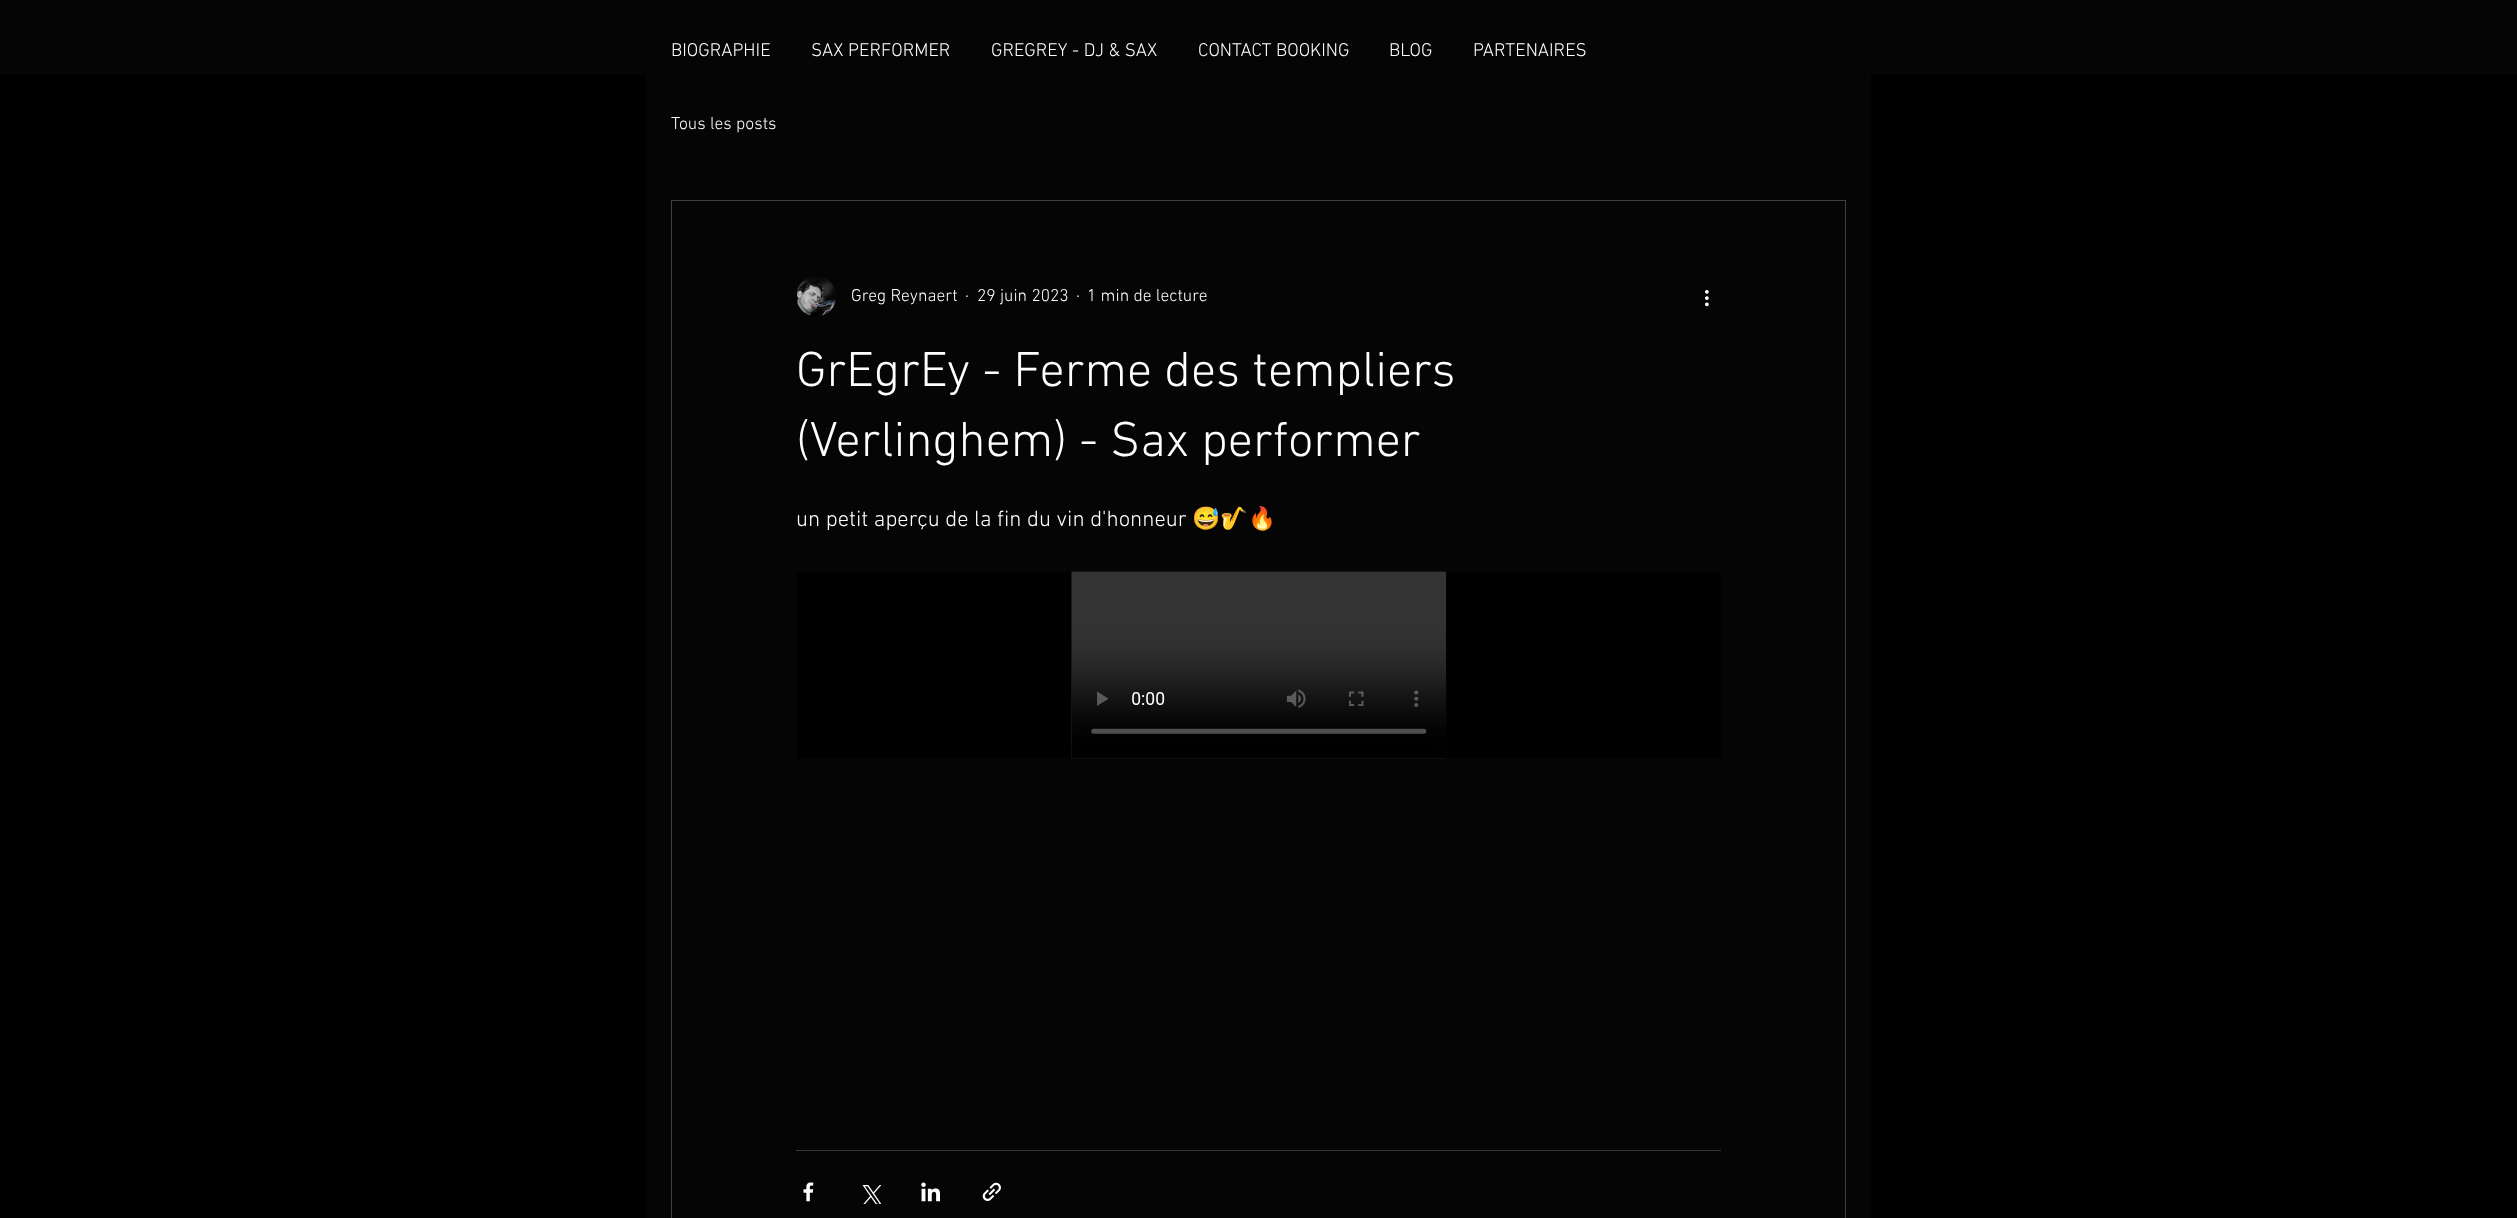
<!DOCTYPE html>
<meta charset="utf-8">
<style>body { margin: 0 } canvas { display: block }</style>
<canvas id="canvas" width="2517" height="1218"></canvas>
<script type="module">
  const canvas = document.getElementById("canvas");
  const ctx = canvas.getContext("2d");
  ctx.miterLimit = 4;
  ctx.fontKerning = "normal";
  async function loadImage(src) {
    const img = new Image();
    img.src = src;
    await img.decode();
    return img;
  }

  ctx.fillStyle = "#000000";
  ctx.fillRect(0, 0, 2517, 1218);
  ctx.fillStyle = "#050505";
  ctx.fillRect(0, 0, 2517, 75);
  ctx.font = "300 18.75px 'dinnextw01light'";
  ctx.fillStyle = "#ffffff";
  ctx.fillText("BIOGRAPHIE", 671, 56);
  ctx.fillText("SAX PERFORMER", 811, 56);
  ctx.fillText("GREGREY - DJ & SAX", 991, 56);
  ctx.fillText("CONTACT BOOKING", 1198, 56);
  ctx.fillText("BLOG", 1389, 56);
  ctx.fillText("PARTENAIRES", 1473, 56);
  ctx.fillStyle = "#050505";
  ctx.fillRect(646, 75, 1225, 1143);
  ctx.font = "300 17.5px 'dinnextw01light'";
  ctx.fillStyle = "#ffffff";
  ctx.fillText("Tous les posts", 671, 129);
  ctx.strokeStyle = "#414141";
  ctx.strokeRect(671.5, 200.5, 1174, 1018);
  ctx.drawImage(await loadImage("img1.png"), 796, 277, 40, 39);
  ctx.fillText("Greg Reynaert", 851, 301);
  ctx.fillText("·", 965, 301);
  ctx.fillText("29 juin 2023", 977, 301);
  ctx.fillText("·", 1076, 301);
  ctx.fillText("1 min de lecture", 1087, 301);
  ctx.drawImage(await loadImage("img2.png"), 1705, 290, 4, 17);
  ctx.font = "300 50px 'dinnextw01light'";
  ctx.fillText("GrEgrEy - Ferme des templiers", 796, 386);
  ctx.fillText("(Verlinghem) - Sax performer", 796, 456);
  ctx.font = "300 22.5px 'dinnextw01light'";
  ctx.fillText("un petit aperçu de la fin du vin d'honneur", 796, 526);
  ctx.font = "22.5px Noto Color Emoji";
  ctx.fillText("😅🎷🔥", 1192, 526);
  ctx.drawImage(await loadImage("img3.png"), 797, 571, 924, 188);
  ctx.fillStyle = "#373737";
  ctx.fillRect(796, 1150, 925, 1);
  ctx.drawImage(await loadImage("img4.png"), 803, 1182, 11, 20);
  ctx.drawImage(await loadImage("img5.png"), 862, 1185, 19, 19);
  ctx.drawImage(await loadImage("img6.png"), 921, 1182, 19, 20);
  ctx.drawImage(await loadImage("img7.png"), 982, 1182, 19, 19);
</script>
